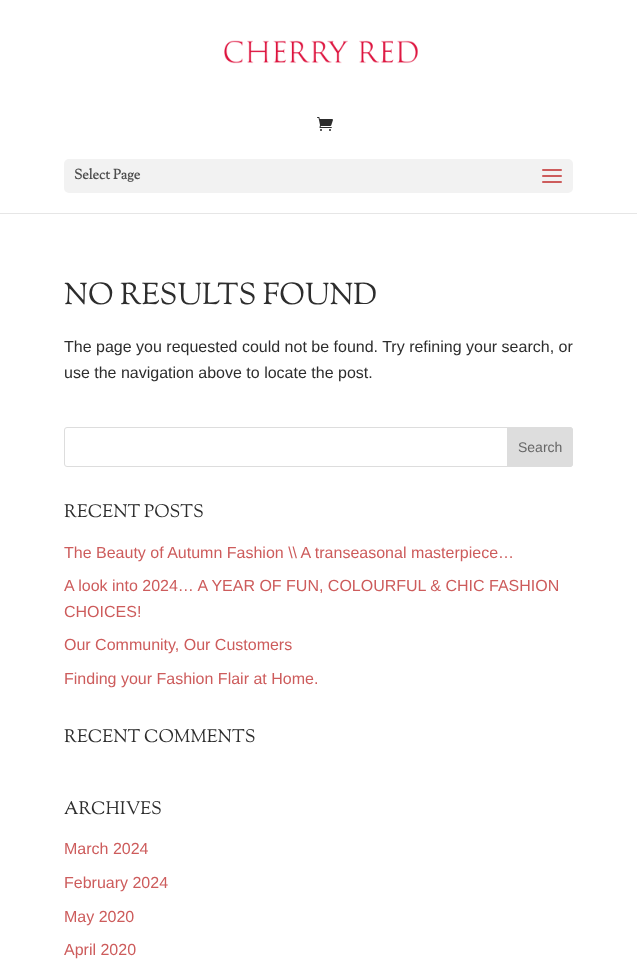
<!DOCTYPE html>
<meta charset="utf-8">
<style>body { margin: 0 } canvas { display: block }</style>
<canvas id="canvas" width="637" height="966"></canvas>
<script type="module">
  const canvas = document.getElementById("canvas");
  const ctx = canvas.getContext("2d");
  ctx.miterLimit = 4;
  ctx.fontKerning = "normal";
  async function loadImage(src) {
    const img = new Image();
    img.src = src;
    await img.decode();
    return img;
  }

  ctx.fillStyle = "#ffffff";
  ctx.fillRect(0, 0, 637, 966);
  ctx.fillStyle = "#e6e6e6";
  ctx.fillRect(0, 213, 637, 1);
  ctx.drawImage(await loadImage("img1.png"), 224, 40, 194, 24);
  ctx.drawImage(await loadImage("img2.png"), 317, 117, 16, 14);
  ctx.fillStyle = "#f2f2f2";
  ctx.beginPath();
  ctx.roundRect(64, 159, 509, 34, 5);
  ctx.fill();
  ctx.font = "bold 14px Sorts Mill Goudy";
  ctx.fillStyle = "#4e4e4e";
  ctx.fillText("Select Page", 74, 179);
  ctx.drawImage(await loadImage("img3.png"), 542, 169, 20, 14);
  ctx.font = "30px Sorts Mill Goudy";
  ctx.fillStyle = "#2d2d2d";
  ctx.fillText("NO RESULTS FOUND", 64, 304);
  ctx.font = "16px Liberation Sans";
  ctx.fillText("The page you requested could not be found. Try refining your search, or", 64, 352);
  ctx.fillText("use the navigation above to locate the post.", 64, 378);
  ctx.beginPath();
  ctx.roundRect(64.5, 427.5, 508, 39, 2.5);
  ctx.strokeStyle = "#dddddd";
  ctx.stroke();
  ctx.fillStyle = "#dddddd";
  ctx.beginPath();
  ctx.roundRect(507.5, 427.5, 65, 39, [0, 2.5, 2.5, 0]);
  ctx.fill();
  ctx.stroke();
  ctx.font = "14px Liberation Sans";
  ctx.fillStyle = "#666666";
  ctx.fillText("Search", 518, 452);
  ctx.font = "18px Sorts Mill Goudy";
  ctx.fillStyle = "#2d2d2d";
  ctx.fillText("RECENT POSTS", 64, 517);
  ctx.font = "16px Liberation Sans";
  ctx.fillStyle = "#cd5c5c";
  ctx.fillText("The Beauty of Autumn Fashion \\\\ A transeasonal masterpiece…", 64, 558);
  ctx.fillText("A look into 2024… A YEAR OF FUN, COLOURFUL & CHIC FASHION", 64, 591);
  ctx.fillText("CHOICES!", 64, 617);
  ctx.fillText("Our Community, Our Customers", 64, 650);
  ctx.fillText("Finding your Fashion Flair at Home.", 64, 684);
  ctx.font = "18px Sorts Mill Goudy";
  ctx.fillStyle = "#2d2d2d";
  ctx.fillText("RECENT COMMENTS", 64, 742);
  ctx.fillText("ARCHIVES", 64, 814);
  ctx.font = "16px Liberation Sans";
  ctx.fillStyle = "#cd5c5c";
  ctx.fillText("March 2024", 64, 854);
  ctx.fillText("February 2024", 64, 888);
  ctx.fillText("May 2020", 64, 922);
  ctx.fillText("April 2020", 64, 955);
</script>
